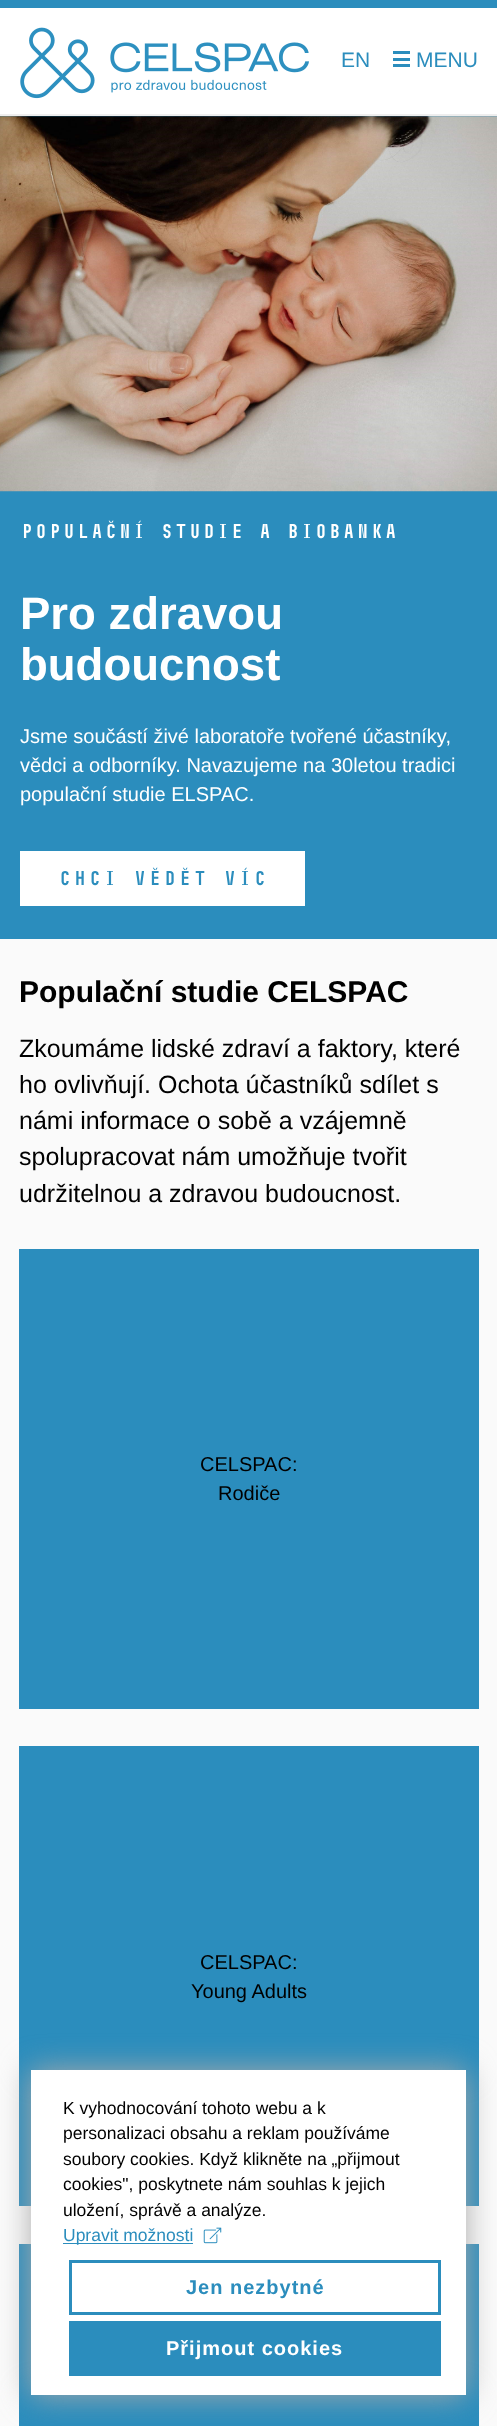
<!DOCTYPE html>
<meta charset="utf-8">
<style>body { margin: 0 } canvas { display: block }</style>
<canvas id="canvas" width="497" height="2426"></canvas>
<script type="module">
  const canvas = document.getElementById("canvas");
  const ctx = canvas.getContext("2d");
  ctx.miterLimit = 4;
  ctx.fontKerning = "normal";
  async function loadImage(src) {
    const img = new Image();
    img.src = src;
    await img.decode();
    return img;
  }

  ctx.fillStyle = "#fafafa";
  ctx.fillRect(0, 0, 497, 2426);
  ctx.fillStyle = "#ffffff";
  ctx.fillRect(0, 8, 497, 106);
  ctx.fillStyle = "#2b8dbd";
  ctx.fillRect(0, 0, 497, 8);
  ctx.fillStyle = "#eeeeee";
  ctx.fillRect(0, 114, 497, 2);
  ctx.drawImage(await loadImage("img1.png"), 20, 27, 289, 72);
  ctx.font = "21px Liberation Sans";
  ctx.fillStyle = "#2b8dbd";
  ctx.fillText("EN", 341, 67);
  ctx.fillRect(393, 51, 17, 3);
  ctx.fillRect(393, 58, 17, 3);
  ctx.fillRect(393, 64, 17, 3);
  ctx.fillText("MENU", 416, 67);
  ctx.fillRect(0, 116, 497, 823);
  ctx.drawImage(await loadImage("img2.png"), 0, 116, 497, 376);
  ctx.font = "bold 20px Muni";
  ctx.fillStyle = "#ffffff";
  ctx.fillText("Populační studie a Biobanka", 20, 538);
  ctx.font = "bold 45.5px Liberation Sans";
  ctx.fillText("Pro zdravou", 20, 629);
  ctx.fillText("budoucnost", 20, 680);
  ctx.font = "20px Liberation Sans";
  ctx.fillText("Jsme součástí živé laboratoře tvořené účastníky,", 20, 743);
  ctx.fillText("vědci a odborníky. Navazujeme na 30letou tradici", 20, 772);
  ctx.fillText("populační studie ELSPAC.", 20, 801);
  ctx.fillRect(20, 851, 285, 55);
  ctx.letterSpacing = "1px";
  ctx.font = "bold 20px Muni";
  ctx.fillStyle = "#2b8dbd";
  ctx.fillText("CHCI VĚDĚT VÍC", 58, 885);
  ctx.letterSpacing = "0px";
  ctx.font = "bold 30px Liberation Sans";
  ctx.fillStyle = "#000000";
  ctx.fillText("Populační studie CELSPAC", 19, 1002);
  ctx.font = "25px Liberation Sans";
  ctx.fillText("Zkoumáme lidské zdraví a faktory, které", 19, 1057);
  ctx.fillText("ho ovlivňují. Ochota účastníků sdílet s", 19, 1093);
  ctx.fillText("námi informace o sobě a vzájemně", 19, 1129);
  ctx.fillText("spolupracovat nám umožňuje tvořit", 19, 1165);
  ctx.fillText("udržitelnou a zdravou budoucnost.", 19, 1202);
  ctx.fillStyle = "#2b8dbd";
  ctx.fillRect(19, 1249, 460, 460);
  ctx.font = "20px Liberation Sans";
  ctx.fillStyle = "#000000";
  ctx.fillText("CELSPAC:", 200, 1471);
  ctx.fillText("Rodiče", 218, 1500);
  ctx.fillStyle = "#2b8dbd";
  ctx.fillRect(19, 1746, 460, 460);
  ctx.fillStyle = "#000000";
  ctx.fillText("CELSPAC:", 200, 1969);
  ctx.fillText("Young Adults", 191, 1998);
  ctx.fillStyle = "#2b8dbd";
  ctx.fillRect(19, 2244, 460, 182);
  ctx.fillStyle = "#aaaaaa";
  ctx.filter = "blur(15.5px)";
  ctx.beginPath();
  ctx.rect(31, 2070, 435, 325);
  ctx.fill();
  ctx.filter = "none";
  ctx.fillStyle = "#ffffff";
  ctx.fillRect(31, 2070, 435, 325);
  ctx.font = "17.5px Liberation Sans";
  ctx.fillStyle = "#000000";
  ctx.fillText("K vyhodnocování tohoto webu a k", 63, 2114);
  ctx.fillText("personalizaci obsahu a reklam používáme", 63, 2139);
  ctx.fillText("soubory cookies. Když klikněte na „přijmout", 63, 2165);
  ctx.fillText("cookies\", poskytnete nám souhlas k jejich", 63, 2190);
  ctx.fillText("uložení, správě a analýze.", 63, 2216);
  ctx.fillStyle = "#2b8dbd";
  ctx.fillRect(63, 2243, 130, 1);
  ctx.fillText("Upravit možnosti", 63, 2241);
  ctx.drawImage(await loadImage("img3.png"), 203, 2227, 19, 17);
  ctx.strokeStyle = "#2b8dbd";
  ctx.lineWidth = 3;
  ctx.strokeRect(70.5, 2261.5, 369, 52);
  ctx.letterSpacing = "1px";
  ctx.font = "bold 20px Liberation Sans";
  ctx.fillText("Jen nezbytné", 186, 2294);
  ctx.fillRect(69, 2321, 372, 55);
  ctx.fillStyle = "#ffffff";
  ctx.fillText("Přijmout cookies", 166, 2355);
</script>
